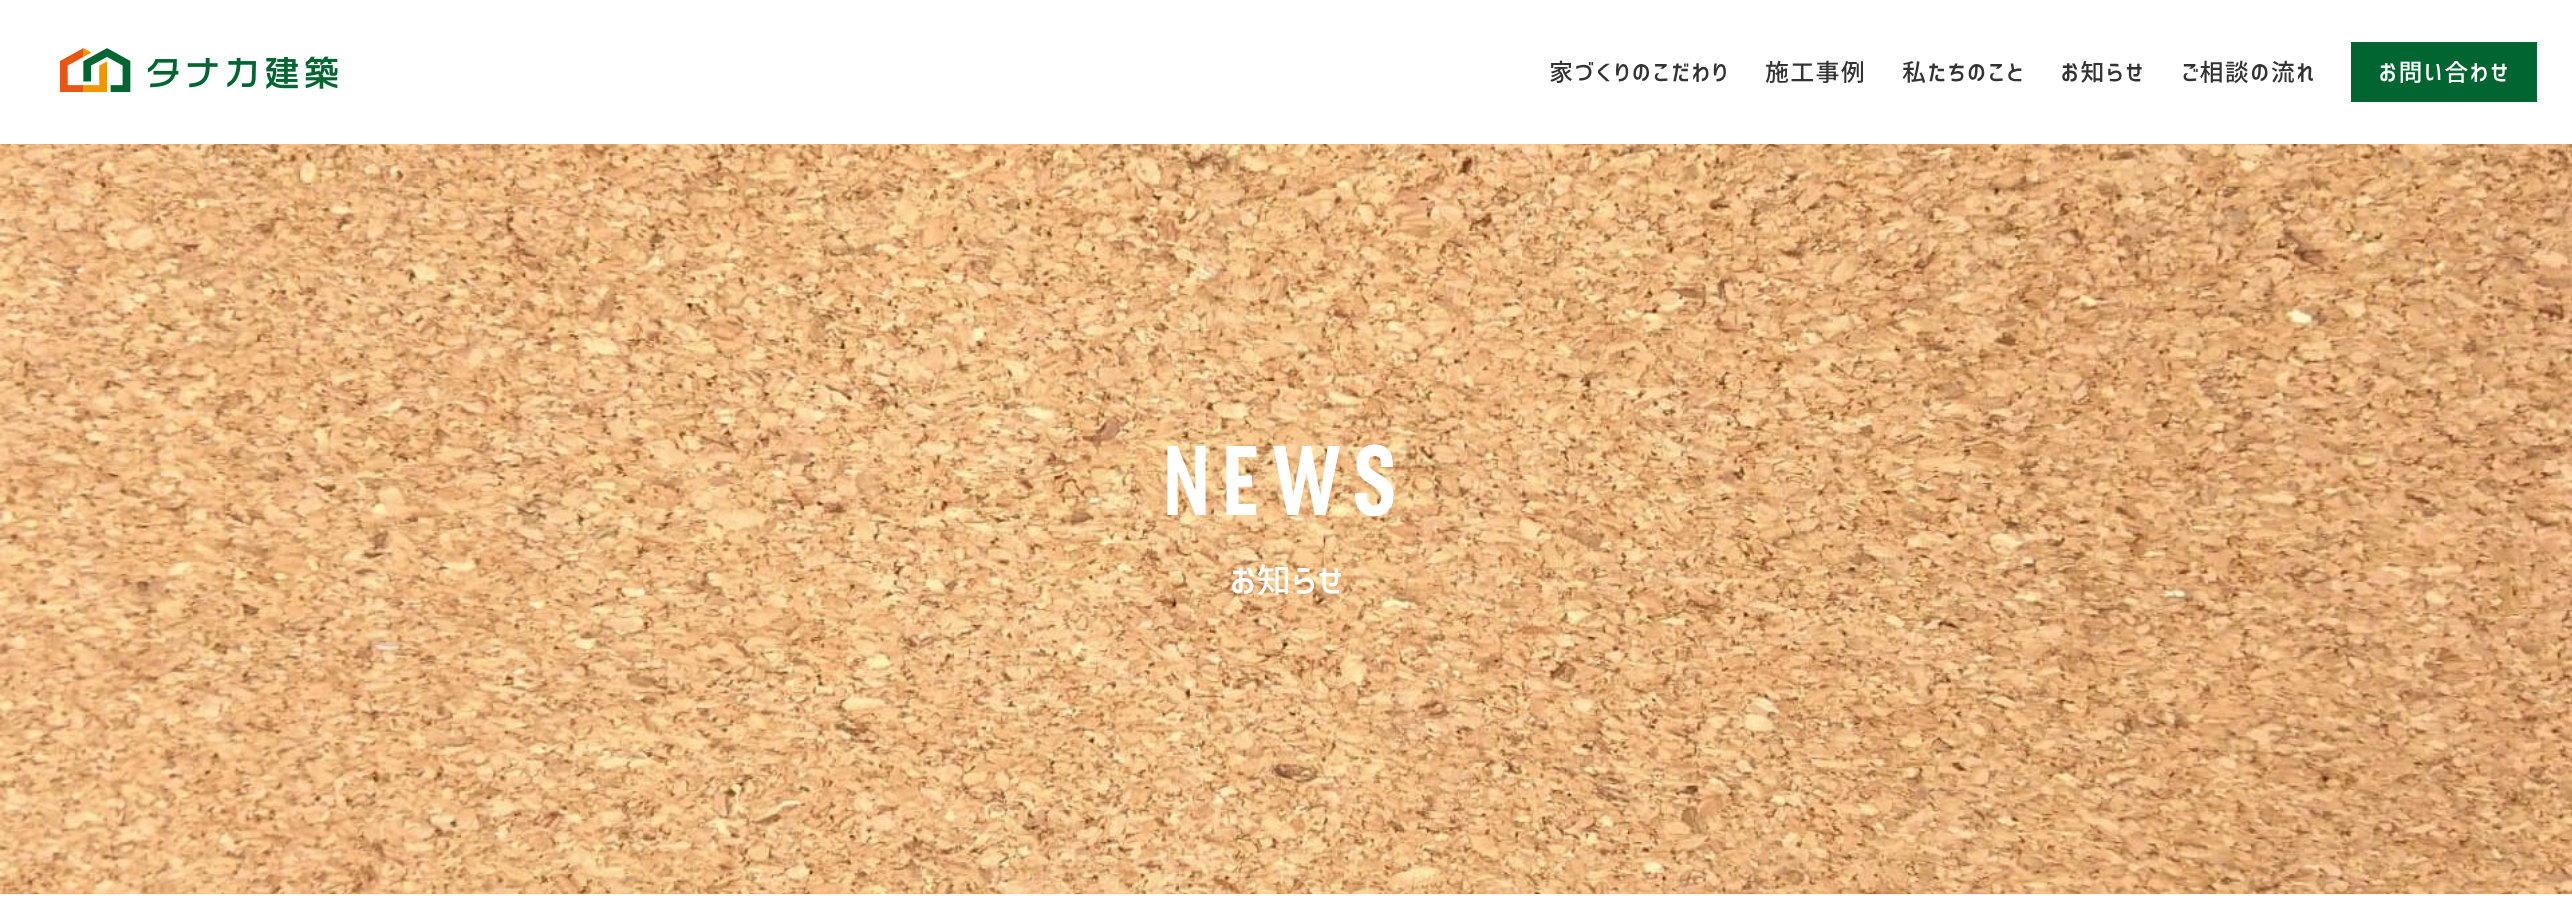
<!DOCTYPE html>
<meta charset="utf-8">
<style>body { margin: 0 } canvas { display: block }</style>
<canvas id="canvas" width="2572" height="918"></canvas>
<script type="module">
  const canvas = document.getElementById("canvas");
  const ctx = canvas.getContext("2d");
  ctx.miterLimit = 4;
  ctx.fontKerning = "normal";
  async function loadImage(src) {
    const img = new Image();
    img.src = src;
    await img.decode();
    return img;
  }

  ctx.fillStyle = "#ffffff";
  ctx.fillRect(0, 0, 2572, 918);
  ctx.drawImage(await loadImage("img1.png"), 60, 48, 278, 44);
  ctx.letterSpacing = "1.25px";
  ctx.font = "500 24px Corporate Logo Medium";
  ctx.fillStyle = "#333333";
  ctx.fillText("家づくりのこだわり", 1549, 81);
  ctx.fillText("施工事例", 1765, 81);
  ctx.fillText("私たちのこと", 1902, 81);
  ctx.fillText("お知らせ", 2060, 81);
  ctx.fillText("ご相談の流れ", 2181, 81);
  ctx.fillStyle = "#006531";
  ctx.fillRect(2351, 42, 186, 60);
  ctx.fillStyle = "#ffffff";
  ctx.fillText("お問い合わせ", 2378, 81);
  ctx.drawImage(await loadImage("img2.png"), 0, 144, 2572, 750);
  ctx.letterSpacing = "12px";
  ctx.font = "500 97.5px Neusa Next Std";
  ctx.fillText("NEWS", 1163, 515);
  ctx.letterSpacing = "0px";
  ctx.font = "500 34.5px Corporate Logo Medium";
  ctx.fillText("お知らせ", 1229, 593);
</script>
